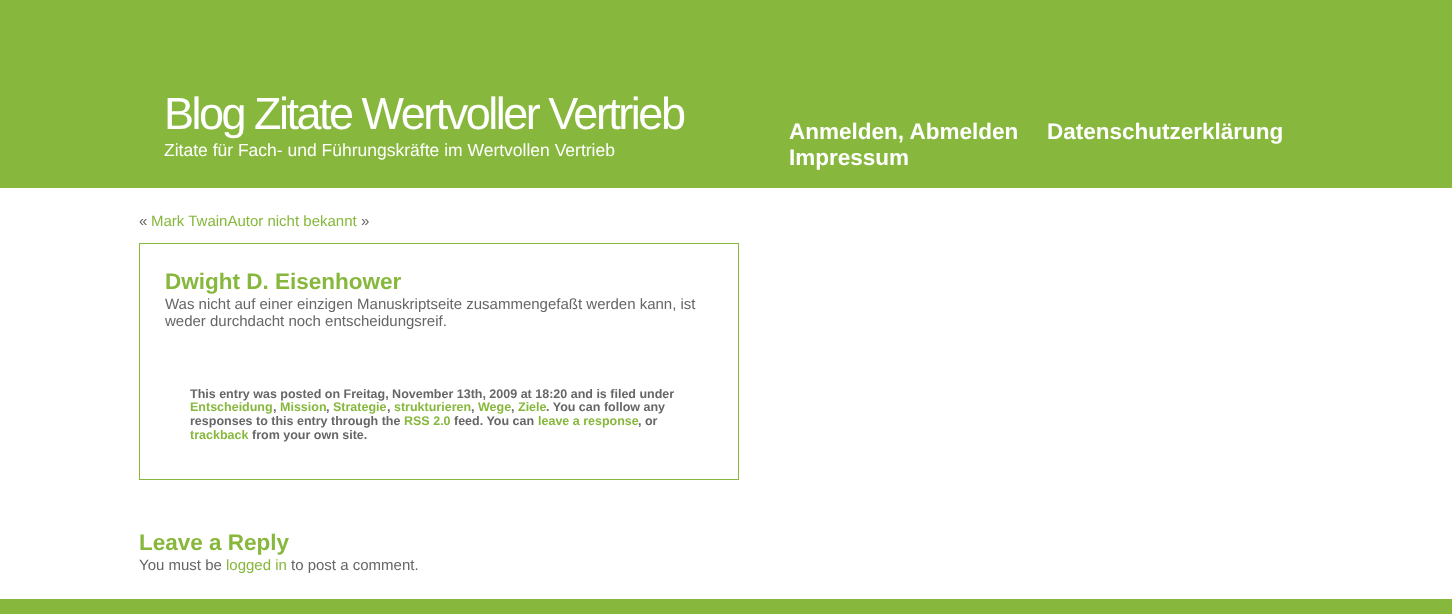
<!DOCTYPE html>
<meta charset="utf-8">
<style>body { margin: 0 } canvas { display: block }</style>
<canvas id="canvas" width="1452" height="614"></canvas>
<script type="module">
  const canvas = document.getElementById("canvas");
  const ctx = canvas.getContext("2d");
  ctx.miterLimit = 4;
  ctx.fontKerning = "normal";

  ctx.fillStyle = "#ffffff";
  ctx.fillRect(0, 0, 1452, 614);
  ctx.fillStyle = "#87b83d";
  ctx.fillRect(0, 0, 1452, 188);
  ctx.letterSpacing = "-2.5px";
  ctx.font = "45px Liberation Sans";
  ctx.fillStyle = "#ffffff";
  ctx.fillText("Blog Zitate Wertvoller Vertrieb", 164, 129);
  ctx.letterSpacing = "0px";
  ctx.font = "17.5px Liberation Sans";
  ctx.fillText("Zitate für Fach- und Führungskräfte im Wertvollen Vertrieb", 164, 156);
  ctx.font = "bold 22.5px Liberation Sans";
  ctx.fillText("Anmelden, Abmelden", 789, 139);
  ctx.fillText("Datenschutzerklärung", 1047, 139);
  ctx.fillText("Impressum", 789, 165);
  ctx.font = "15px Liberation Sans";
  ctx.fillStyle = "#666666";
  ctx.fillText("«", 139, 226);
  ctx.fillStyle = "#87b83d";
  ctx.fillText("Mark TwainAutor nicht bekannt", 151, 226);
  ctx.fillStyle = "#666666";
  ctx.fillText("»", 361, 226);
  ctx.strokeStyle = "#87b83d";
  ctx.strokeRect(139.5, 243.5, 599, 236);
  ctx.font = "bold 22.5px Liberation Sans";
  ctx.fillStyle = "#87b83d";
  ctx.fillText("Dwight D. Eisenhower", 165, 289);
  ctx.font = "15px Liberation Sans";
  ctx.fillStyle = "#666666";
  ctx.fillText("Was nicht auf einer einzigen Manuskriptseite zusammengefaßt werden kann, ist", 165, 309);
  ctx.fillText("weder durchdacht noch entscheidungsreif.", 165, 326);
  ctx.font = "bold 12.5px Liberation Sans";
  ctx.fillText("This entry was posted on Freitag, November 13th, 2009 at 18:20 and is filed under", 190, 398);
  ctx.fillStyle = "#87b83d";
  ctx.fillText("Entscheidung", 190, 411);
  ctx.fillStyle = "#666666";
  ctx.fillText(",", 273, 411);
  ctx.fillStyle = "#87b83d";
  ctx.fillText("Mission", 280, 411);
  ctx.fillStyle = "#666666";
  ctx.fillText(",", 326, 411);
  ctx.fillStyle = "#87b83d";
  ctx.fillText("Strategie", 333, 411);
  ctx.fillStyle = "#666666";
  ctx.fillText(",", 387, 411);
  ctx.fillStyle = "#87b83d";
  ctx.fillText("strukturieren", 394, 411);
  ctx.fillStyle = "#666666";
  ctx.fillText(",", 471, 411);
  ctx.fillStyle = "#87b83d";
  ctx.fillText("Wege", 478, 411);
  ctx.fillStyle = "#666666";
  ctx.fillText(",", 511, 411);
  ctx.fillStyle = "#87b83d";
  ctx.fillText("Ziele", 518, 411);
  ctx.fillStyle = "#666666";
  ctx.fillText(". You can follow any", 546, 411);
  ctx.fillText("responses to this entry through the", 190, 425);
  ctx.fillStyle = "#87b83d";
  ctx.fillText("RSS 2.0", 404, 425);
  ctx.fillStyle = "#666666";
  ctx.fillText("feed. You can", 454, 425);
  ctx.fillStyle = "#87b83d";
  ctx.fillText("leave a response", 538, 425);
  ctx.fillStyle = "#666666";
  ctx.fillText(", or", 638, 425);
  ctx.fillStyle = "#87b83d";
  ctx.fillText("trackback", 190, 439);
  ctx.fillStyle = "#666666";
  ctx.fillText("from your own site.", 252, 439);
  ctx.font = "bold 22.5px Liberation Sans";
  ctx.fillStyle = "#87b83d";
  ctx.fillText("Leave a Reply", 139, 550);
  ctx.font = "15px Liberation Sans";
  ctx.fillStyle = "#666666";
  ctx.fillText("You must be", 139, 570);
  ctx.fillStyle = "#87b83d";
  ctx.fillText("logged in", 226, 570);
  ctx.fillStyle = "#666666";
  ctx.fillText("to post a comment.", 291, 570);
  ctx.fillStyle = "#87b83d";
  ctx.fillRect(0, 599, 1452, 15);
</script>
